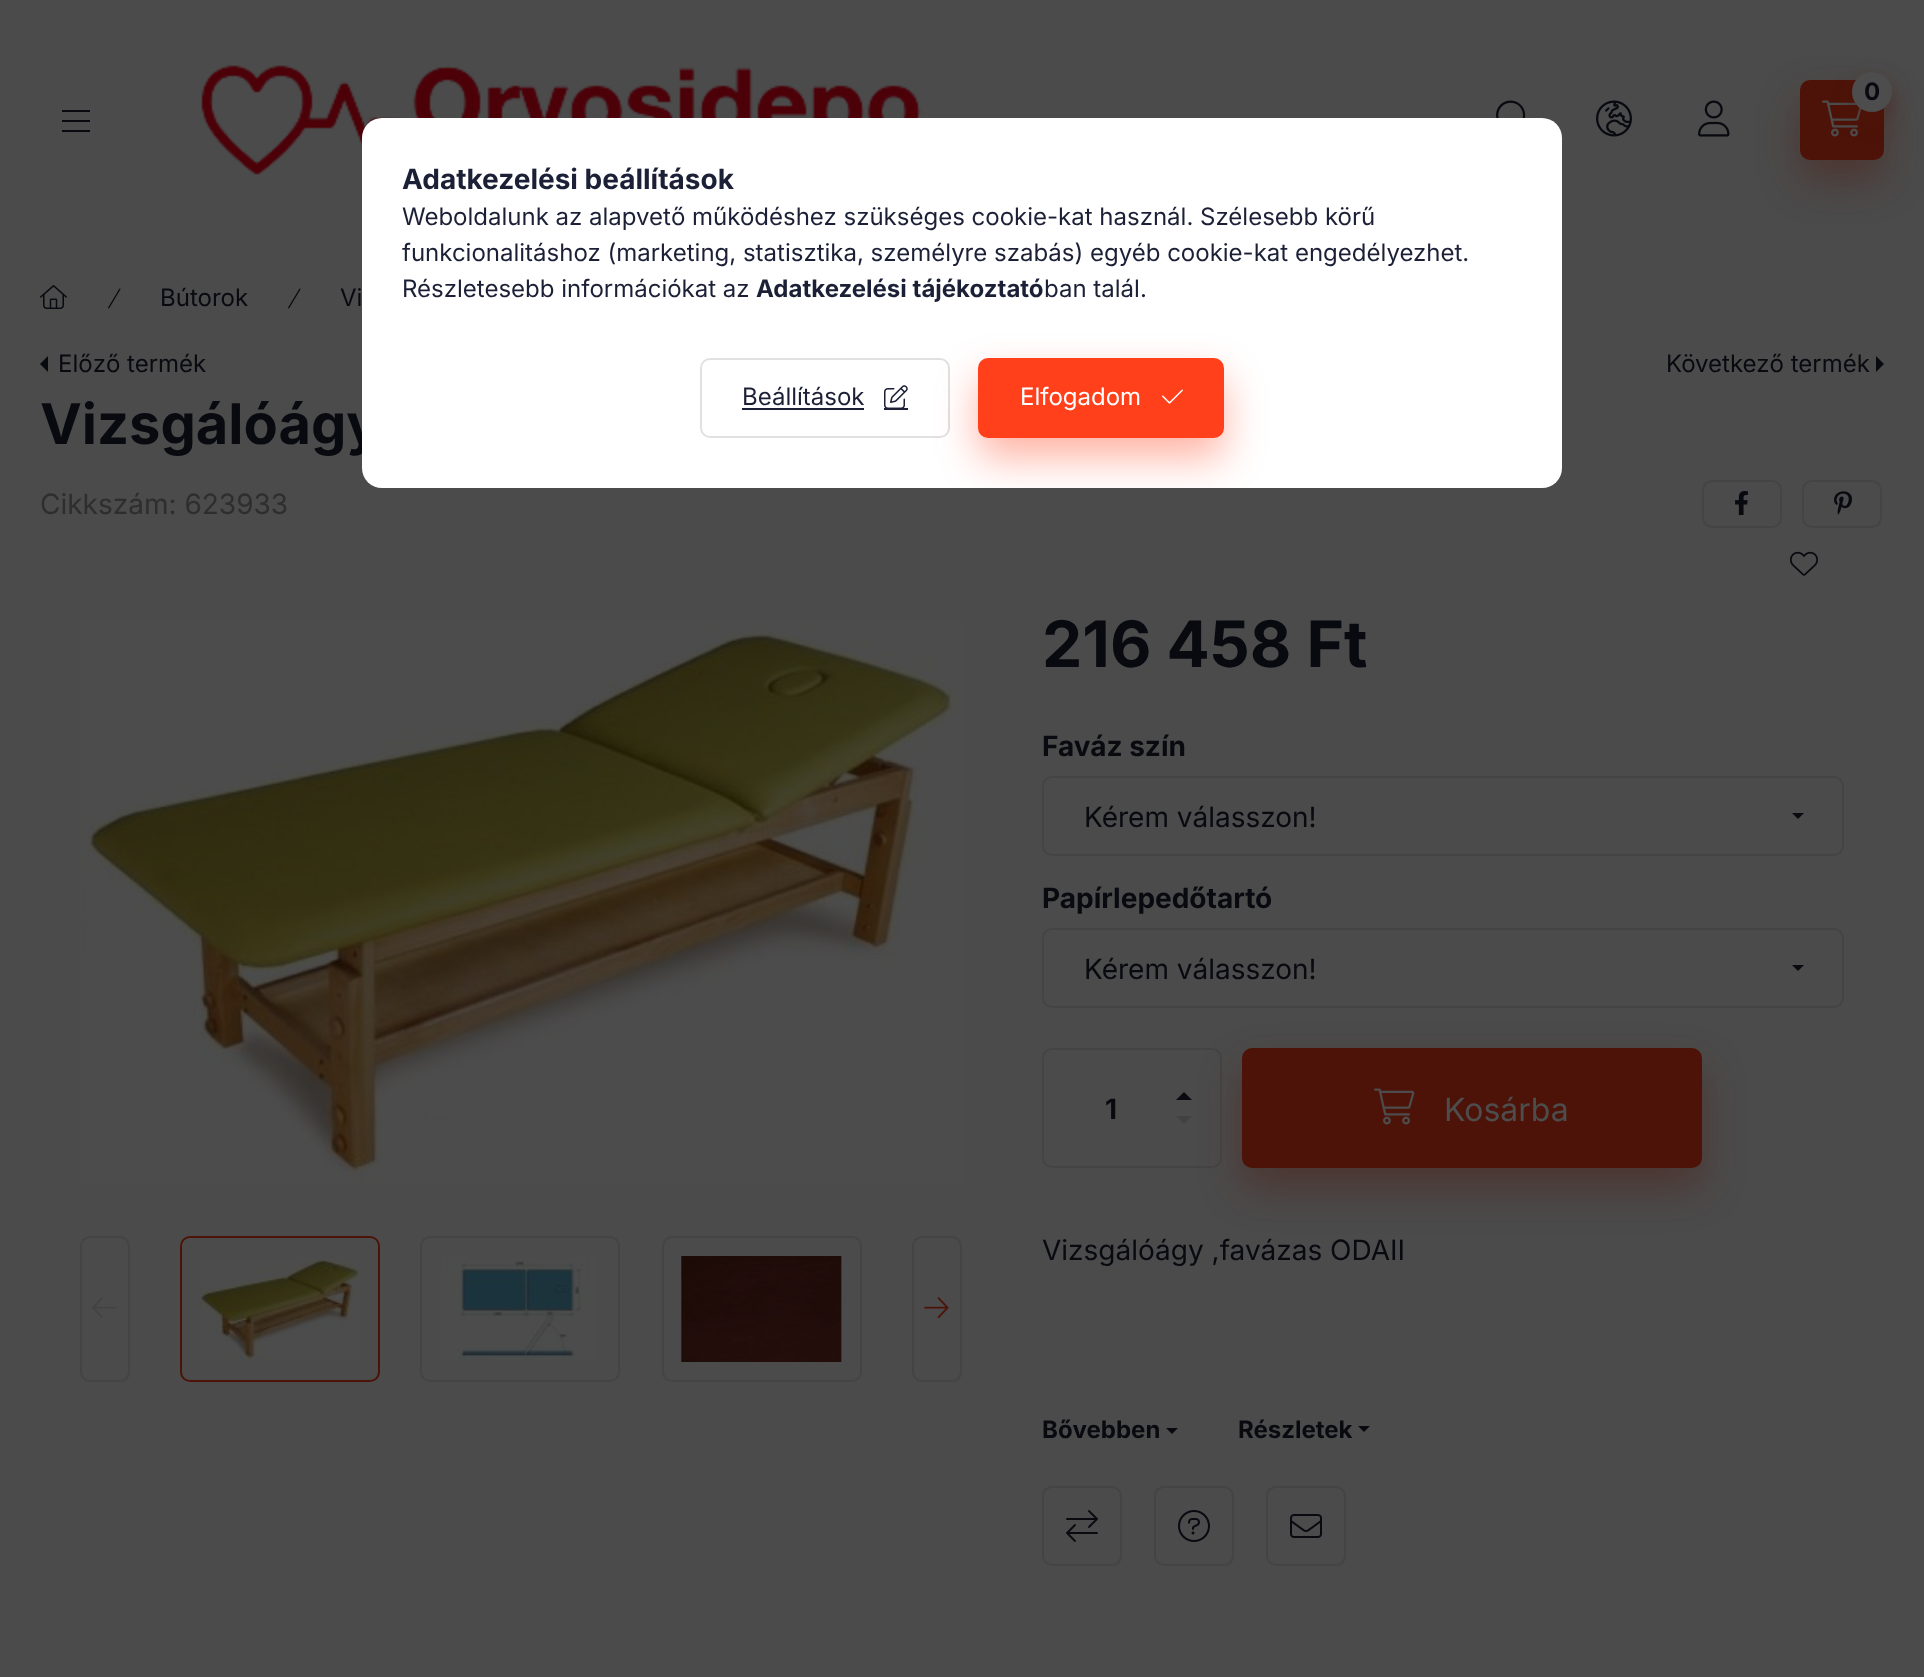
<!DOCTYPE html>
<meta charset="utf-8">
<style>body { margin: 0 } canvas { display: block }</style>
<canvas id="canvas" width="1924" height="1677"></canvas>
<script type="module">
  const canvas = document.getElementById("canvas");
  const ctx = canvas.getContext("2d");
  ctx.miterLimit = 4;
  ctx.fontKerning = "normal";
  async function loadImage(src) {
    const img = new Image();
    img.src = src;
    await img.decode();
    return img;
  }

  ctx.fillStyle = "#4b4b4b";
  ctx.fillRect(0, 0, 1924, 1677);
  ctx.fillStyle = "#080a10";
  ctx.fillRect(62, 110, 28, 2);
  ctx.fillRect(62, 120, 28, 2);
  ctx.fillRect(62, 130, 28, 2);
  ctx.drawImage(await loadImage("img1.png"), 201, 65, 720, 110);
  ctx.fillStyle = "rgba(77, 19, 8, 0.4)";
  ctx.filter = "blur(20px)";
  ctx.beginPath();
  ctx.roundRect(1800, 100, 84, 80, 10);
  ctx.fill();
  ctx.filter = "none";
  ctx.fillStyle = "#4d1308";
  ctx.beginPath();
  ctx.roundRect(1800, 80, 84, 80, 10);
  ctx.fill();
  ctx.drawImage(await loadImage("img2.png"), 1822, 100, 40, 37);
  ctx.fillStyle = "rgba(77, 19, 8, 0.4)";
  ctx.filter = "blur(10px)";
  ctx.beginPath();
  ctx.roundRect(1852, 82, 40, 40, 20);
  ctx.fill();
  ctx.filter = "none";
  ctx.fillStyle = "#4d4d4d";
  ctx.beginPath();
  ctx.arc(1872, 92, 20, 0, Math.PI * 2);
  ctx.fill();
  ctx.font = "bold 24px Inter";
  ctx.fillStyle = "#080a10";
  ctx.fillText("0", 1864, 100);
  ctx.drawImage(await loadImage("img3.png"), 1496, 100, 30, 18);
  ctx.drawImage(await loadImage("img4.png"), 1596, 100, 36, 37);
  ctx.drawImage(await loadImage("img5.png"), 1698, 100, 32, 37);
  ctx.drawImage(await loadImage("img6.png"), 40, 285, 27, 24);
  ctx.drawImage(await loadImage("img7.png"), 108, 288, 13, 21);
  ctx.font = "24px Inter";
  ctx.fillText("Bútorok", 160, 306);
  ctx.drawImage(await loadImage("img7.png"), 288, 288, 13, 21);
  ctx.fillText("Vi", 340, 306);
  ctx.beginPath();
  ctx.moveTo(48, 372);
  ctx.lineTo(48, 356);
  ctx.lineTo(40, 364);
  ctx.closePath();
  ctx.fill();
  ctx.fillText("Előző termék", 58, 372);
  ctx.fillText("Következő termék", 1666, 372);
  ctx.beginPath();
  ctx.moveTo(1876, 372);
  ctx.lineTo(1876, 356);
  ctx.lineTo(1884, 364);
  ctx.closePath();
  ctx.fill();
  ctx.font = "bold 56px Inter";
  ctx.fillText("Vizsgálóágy", 40, 444);
  ctx.font = "28px Inter";
  ctx.fillStyle = "#2e2e2e";
  ctx.fillText("Cikkszám: 623933", 40, 514);
  ctx.beginPath();
  ctx.roundRect(1703, 481, 78, 46, 9);
  ctx.strokeStyle = "#444444";
  ctx.lineWidth = 2;
  ctx.stroke();
  ctx.drawImage(await loadImage("img8.png"), 1735, 491, 13, 24);
  ctx.beginPath();
  ctx.roundRect(1803, 481, 78, 46, 9);
  ctx.stroke();
  ctx.drawImage(await loadImage("img9.png"), 1834, 491, 18, 24);
  ctx.drawImage(await loadImage("img10.png"), 1790, 551, 28, 25);
  ctx.drawImage(await loadImage("img11.png"), 80, 621, 882, 563);
  ctx.beginPath();
  ctx.roundRect(81, 1237, 48, 144, 9);
  ctx.stroke();
  ctx.drawImage(await loadImage("img12.png"), 92, 1297, 25, 21);
  ctx.beginPath();
  ctx.roundRect(181, 1237, 198, 144, 9);
  ctx.strokeStyle = "#4d1308";
  ctx.stroke();
  ctx.drawImage(await loadImage("img13.png"), 200, 1258, 160, 102);
  ctx.beginPath();
  ctx.roundRect(421, 1237, 198, 144, 9);
  ctx.strokeStyle = "#444444";
  ctx.stroke();
  ctx.drawImage(await loadImage("img14.png"), 441, 1258, 154, 102);
  ctx.beginPath();
  ctx.roundRect(663, 1237, 198, 144, 9);
  ctx.stroke();
  ctx.drawImage(await loadImage("img15.png"), 681, 1256, 161, 106);
  ctx.beginPath();
  ctx.roundRect(913, 1237, 48, 144, 9);
  ctx.stroke();
  ctx.drawImage(await loadImage("img16.png"), 924, 1297, 25, 22);
  ctx.font = "bold 64px Inter";
  ctx.fillStyle = "#080a10";
  ctx.fillText("216 458 Ft", 1042, 667);
  ctx.font = "bold 28px Inter";
  ctx.fillText("Faváz szín", 1042, 756);
  ctx.beginPath();
  ctx.roundRect(1043, 777, 800, 78, 9);
  ctx.stroke();
  ctx.font = "28px Inter";
  ctx.fillText("Kérem válasszon!", 1084, 827);
  ctx.beginPath();
  ctx.moveTo(1792, 813);
  ctx.lineTo(1804, 813);
  ctx.lineTo(1798, 819);
  ctx.closePath();
  ctx.fill();
  ctx.font = "bold 28px Inter";
  ctx.fillText("Papírlepedőtartó", 1042, 908);
  ctx.beginPath();
  ctx.roundRect(1043, 929, 800, 78, 9);
  ctx.stroke();
  ctx.font = "28px Inter";
  ctx.fillText("Kérem válasszon!", 1084, 979);
  ctx.beginPath();
  ctx.moveTo(1792, 965);
  ctx.lineTo(1804, 965);
  ctx.lineTo(1798, 971);
  ctx.closePath();
  ctx.fill();
  ctx.beginPath();
  ctx.roundRect(1043, 1049, 178, 118, 9);
  ctx.stroke();
  ctx.font = "bold 28px Inter";
  ctx.fillText("1", 1105, 1119);
  ctx.beginPath();
  ctx.moveTo(1192, 1100);
  ctx.lineTo(1176, 1100);
  ctx.lineTo(1184, 1092);
  ctx.closePath();
  ctx.fill();
  ctx.fillStyle = "#424242";
  ctx.beginPath();
  ctx.moveTo(1176, 1116);
  ctx.lineTo(1192, 1116);
  ctx.lineTo(1184, 1124);
  ctx.closePath();
  ctx.fill();
  ctx.fillStyle = "rgba(77, 19, 8, 0.4)";
  ctx.filter = "blur(20px)";
  ctx.beginPath();
  ctx.roundRect(1242, 1068, 460, 120, 10);
  ctx.fill();
  ctx.filter = "none";
  ctx.fillStyle = "#4d1308";
  ctx.beginPath();
  ctx.roundRect(1242, 1048, 460, 120, 10);
  ctx.fill();
  ctx.drawImage(await loadImage("img17.png"), 1374, 1088, 41, 37);
  ctx.font = "32px Inter";
  ctx.fillStyle = "#4d4d4d";
  ctx.fillText("Kosárba", 1444, 1121);
  ctx.font = "28px Inter";
  ctx.fillStyle = "#080a10";
  ctx.fillText("Vizsgálóágy ,favázas ODAII", 1042, 1260);
  ctx.font = "bold 24px Inter";
  ctx.fillText("Bővebben", 1042, 1438);
  ctx.beginPath();
  ctx.moveTo(1166, 1428);
  ctx.lineTo(1178, 1428);
  ctx.lineTo(1172, 1434);
  ctx.closePath();
  ctx.fill();
  ctx.fillText("Részletek", 1238, 1438);
  ctx.beginPath();
  ctx.moveTo(1358, 1426);
  ctx.lineTo(1370, 1426);
  ctx.lineTo(1364, 1432);
  ctx.closePath();
  ctx.fill();
  ctx.beginPath();
  ctx.roundRect(1043, 1487, 78, 78, 9);
  ctx.stroke();
  ctx.drawImage(await loadImage("img18.png"), 1066, 1510, 32, 32);
  ctx.beginPath();
  ctx.roundRect(1155, 1487, 78, 78, 9);
  ctx.stroke();
  ctx.drawImage(await loadImage("img19.png"), 1178, 1510, 32, 32);
  ctx.beginPath();
  ctx.roundRect(1267, 1487, 78, 78, 9);
  ctx.stroke();
  ctx.drawImage(await loadImage("img20.png"), 1290, 1514, 32, 24);
  ctx.fillStyle = "#ffffff";
  ctx.beginPath();
  ctx.roundRect(362, 118, 1200, 370, 20);
  ctx.fill();
  ctx.font = "bold 28px Inter";
  ctx.fillStyle = "#1b2036";
  ctx.fillText("Adatkezelési beállítások", 402, 189);
  ctx.font = "24px Inter";
  ctx.fillText("Weboldalunk az alapvető működéshez szükséges cookie-kat használ. Szélesebb körű", 402, 225);
  ctx.fillText("funkcionalitáshoz (marketing, statisztika, személyre szabás) egyéb cookie-kat engedélyezhet.", 402, 261);
  ctx.fillText("Részletesebb információkat az", 402, 297);
  ctx.font = "bold 24px Inter";
  ctx.fillText("Adatkezelési tájékoztató", 756, 297);
  ctx.font = "24px Inter";
  ctx.fillText("ban talál.", 1044, 297);
  ctx.beginPath();
  ctx.roundRect(701, 359, 248, 78, 9);
  ctx.strokeStyle = "#e1e1e1";
  ctx.stroke();
  ctx.fillText("Beállítások", 742, 405);
  ctx.fillRect(742, 408, 122, 2);
  ctx.drawImage(await loadImage("img21.png"), 884, 385, 24, 23);
  ctx.fillRect(884, 408, 24, 2);
  ctx.save();
  ctx.beginPath();
  ctx.roundRect(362, 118, 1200, 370, 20);
  ctx.clip();
  ctx.fillStyle = "rgba(255, 64, 27, 0.4)";
  ctx.filter = "blur(20px)";
  ctx.beginPath();
  ctx.roundRect(978, 378, 246, 80, 10);
  ctx.fill();
  ctx.filter = "none";
  ctx.restore();
  ctx.fillStyle = "#ff401b";
  ctx.beginPath();
  ctx.roundRect(979, 359, 244, 78, 9);
  ctx.fill();
  ctx.strokeStyle = "#ff401b";
  ctx.stroke();
  ctx.fillStyle = "#ffffff";
  ctx.fillText("Elfogadom", 1020, 405);
  ctx.drawImage(await loadImage("img22.png"), 1162, 389, 21, 15);
</script>
